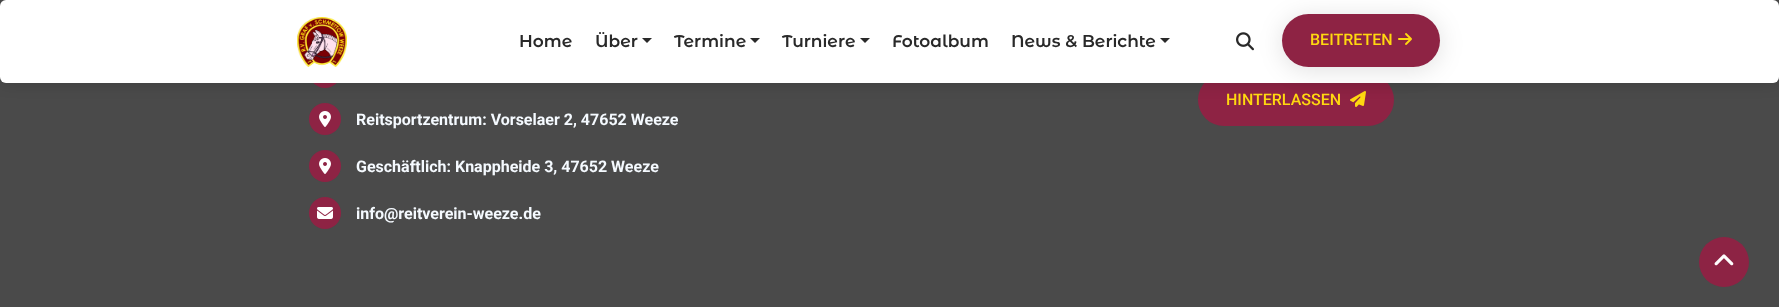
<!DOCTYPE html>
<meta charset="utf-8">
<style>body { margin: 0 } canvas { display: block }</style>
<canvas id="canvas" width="1779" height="307"></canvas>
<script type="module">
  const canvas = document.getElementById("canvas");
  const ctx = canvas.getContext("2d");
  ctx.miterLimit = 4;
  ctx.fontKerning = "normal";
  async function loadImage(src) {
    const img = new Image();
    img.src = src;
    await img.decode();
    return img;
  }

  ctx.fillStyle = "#4a4a4a";
  ctx.fillRect(0, 0, 1779, 307);
  ctx.fillStyle = "#8e2344";
  ctx.beginPath();
  ctx.roundRect(1198, 74, 196, 52, 26);
  ctx.fill();
  ctx.drawImage(await loadImage("img4.png"), 1350, 91, 16, 16);
  ctx.beginPath();
  ctx.arc(325, 72, 16, 0, Math.PI * 2);
  ctx.fill();
  ctx.beginPath();
  ctx.arc(325, 119, 16, 0, Math.PI * 2);
  ctx.fill();
  ctx.fillStyle = "rgba(0, 0, 0, 0.17)";
  ctx.filter = "blur(7.5px)";
  ctx.beginPath();
  ctx.roundRect(0, 0, 1779, 83, 6);
  ctx.fill();
  ctx.filter = "none";
  ctx.fillStyle = "#ffffff";
  ctx.beginPath();
  ctx.roundRect(0, 0, 1779, 83, 6);
  ctx.fill();
  ctx.drawImage(await loadImage("img1.png"), 297, 17, 50, 50);
  ctx.font = "600 17px Montserrat Alternates";
  ctx.fillStyle = "#292929";
  ctx.fillText("Home", 519, 47);
  ctx.fillText("Über", 595, 47);
  ctx.beginPath();
  ctx.moveTo(642, 38);
  ctx.lineTo(652, 38);
  ctx.lineTo(647, 43);
  ctx.closePath();
  ctx.fill();
  ctx.fillText("Termine", 674, 47);
  ctx.beginPath();
  ctx.moveTo(750, 38);
  ctx.lineTo(760, 38);
  ctx.lineTo(755, 43);
  ctx.closePath();
  ctx.fill();
  ctx.fillText("Turniere", 782, 47);
  ctx.beginPath();
  ctx.moveTo(860, 38);
  ctx.lineTo(870, 38);
  ctx.lineTo(865, 43);
  ctx.closePath();
  ctx.fill();
  ctx.fillText("Fotoalbum", 892, 47);
  ctx.fillText("News & Berichte", 1011, 47);
  ctx.beginPath();
  ctx.moveTo(1160, 38);
  ctx.lineTo(1170, 38);
  ctx.lineTo(1165, 43);
  ctx.closePath();
  ctx.fill();
  ctx.drawImage(await loadImage("img2.png"), 1236, 32, 18, 19);
  ctx.fillStyle = "rgba(0, 0, 0, 0.12)";
  ctx.filter = "blur(12px)";
  ctx.beginPath();
  ctx.roundRect(1282, 17, 158, 53, 26.5);
  ctx.fill();
  ctx.filter = "none";
  ctx.fillStyle = "#8e2344";
  ctx.beginPath();
  ctx.roundRect(1282, 14, 158, 53, 26.5);
  ctx.fill();
  ctx.font = "500 16px Roboto";
  ctx.fillStyle = "#ffd810";
  ctx.fillText("BEITRETEN", 1310, 45);
  ctx.drawImage(await loadImage("img3.png"), 1398, 33, 14, 12);
  ctx.fillText("HINTERLASSEN", 1226, 105);
  ctx.drawImage(await loadImage("img5.png"), 319, 111, 12, 16);
  ctx.font = "bold 16px Roboto";
  ctx.fillStyle = "#f5faff";
  ctx.fillText("Reitsportzentrum: Vorselaer 2, 47652 Weeze", 356, 125);
  ctx.fillStyle = "#8e2344";
  ctx.beginPath();
  ctx.arc(325, 166, 16, 0, Math.PI * 2);
  ctx.fill();
  ctx.drawImage(await loadImage("img5.png"), 319, 158, 12, 16);
  ctx.fillStyle = "#f5faff";
  ctx.fillText("Geschäftlich: Knappheide 3, 47652 Weeze", 356, 172);
  ctx.fillStyle = "#8e2344";
  ctx.beginPath();
  ctx.arc(325, 213, 16, 0, Math.PI * 2);
  ctx.fill();
  ctx.drawImage(await loadImage("img6.png"), 317, 207, 16, 12);
  ctx.fillStyle = "#f5faff";
  ctx.fillText("info@reitverein-weeze.de", 356, 219);
  ctx.fillStyle = "#8d2344";
  ctx.beginPath();
  ctx.arc(1724, 262, 25, 0, Math.PI * 2);
  ctx.fill();
  ctx.drawImage(await loadImage("img7.png"), 1714, 254, 20, 12);
</script>
